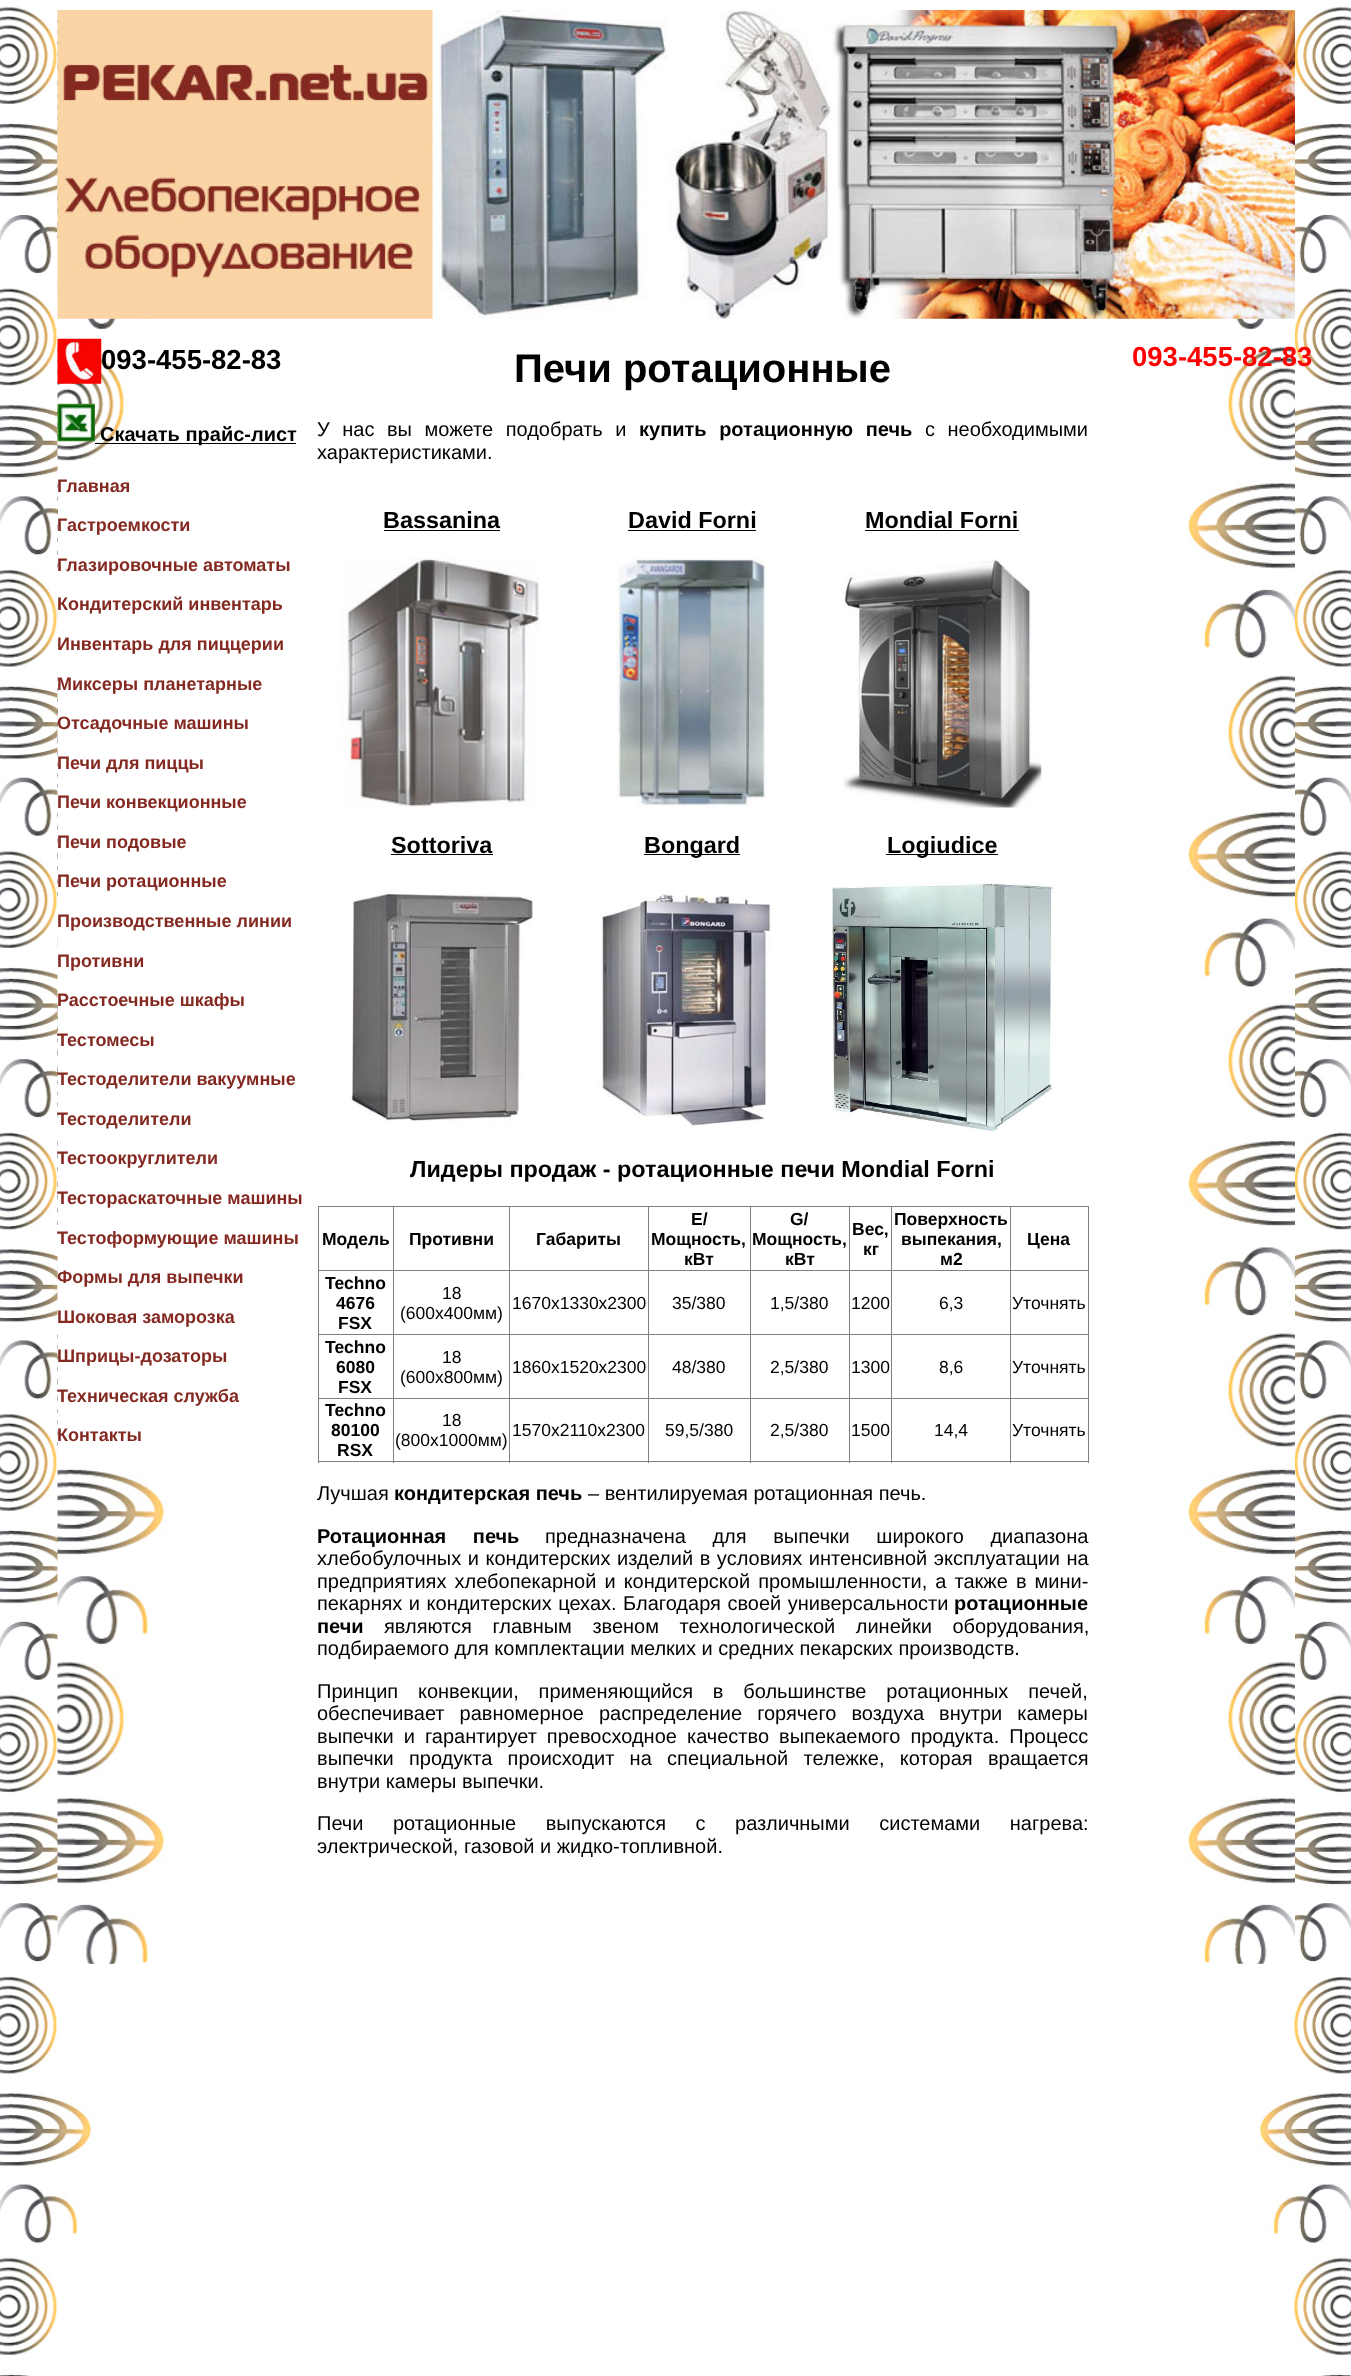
<!DOCTYPE html>
<meta charset="utf-8">
<style>body { margin: 0 } canvas { display: block }</style>
<canvas id="canvas" width="1351" height="2376"></canvas>
<script type="module">
  const canvas = document.getElementById("canvas");
  const ctx = canvas.getContext("2d");
  ctx.miterLimit = 4;
  ctx.fontKerning = "normal";
  async function loadImage(src) {
    const img = new Image();
    img.src = src;
    await img.decode();
    return img;
  }

  ctx.fillStyle = "#ffffff";
  ctx.fillRect(0, 0, 1351, 2376);
  ctx.drawImage(await loadImage("img1.png"), 0, 6, 1351, 2370);
  ctx.drawImage(await loadImage("img2.png"), 57, 17, 1238, 1947);
  ctx.drawImage(await loadImage("img3.png"), 57, 10, 1238, 309);
  ctx.drawImage(await loadImage("img4.png"), 57, 338, 45, 46);
  ctx.font = "bold 27.5px Liberation Sans";
  ctx.fillStyle = "#000000";
  ctx.fillText("093-455-82-83", 101, 369);
  ctx.fillStyle = "#ff0000";
  ctx.fillText("093-455-82-83", 1132, 366);
  ctx.drawImage(await loadImage("img5.png"), 57, 403, 38, 39);
  ctx.fillStyle = "#000000";
  ctx.fillRect(95, 443, 201, 1);
  ctx.font = "bold 20px Liberation Sans";
  ctx.fillText("Скачать прайс-лист", 100, 441);
  ctx.fillStyle = "#ffffff";
  ctx.fillRect(58, 480, 109, 968);
  ctx.font = "bold 18px Liberation Sans";
  ctx.fillStyle = "#842921";
  ctx.fillText("Главная", 57, 492);
  ctx.fillText("Гастроемкости", 57, 531);
  ctx.fillText("Глазировочные автоматы", 57, 571);
  ctx.fillText("Кондитерский инвентарь", 57, 610);
  ctx.fillText("Инвентарь для пиццерии", 57, 650);
  ctx.fillText("Миксеры планетарные", 57, 690);
  ctx.fillText("Отсадочные машины", 57, 729);
  ctx.fillText("Печи для пиццы", 57, 769);
  ctx.fillText("Печи конвекционные", 57, 808);
  ctx.fillText("Печи подовые", 57, 848);
  ctx.fillText("Печи ротационные", 57, 887);
  ctx.fillText("Производственные линии", 57, 927);
  ctx.fillText("Противни", 57, 967);
  ctx.fillText("Расстоечные шкафы", 57, 1006);
  ctx.fillText("Тестомесы", 57, 1046);
  ctx.fillText("Тестоделители вакуумные", 57, 1085);
  ctx.fillText("Тестоделители", 57, 1125);
  ctx.fillText("Тестоокруглители", 57, 1164);
  ctx.fillText("Тестораскаточные машины", 57, 1204);
  ctx.fillText("Тестоформующие машины", 57, 1244);
  ctx.fillText("Формы для выпечки", 57, 1283);
  ctx.fillText("Шоковая заморозка", 57, 1323);
  ctx.fillText("Шприцы-дозаторы", 57, 1362);
  ctx.fillText("Техническая служба", 57, 1402);
  ctx.fillText("Контакты", 57, 1441);
  ctx.font = "bold 40px Liberation Sans";
  ctx.fillStyle = "#000000";
  ctx.fillText("Печи ротационные", 514, 382);
  ctx.wordSpacing = "7px";
  ctx.font = "20px Liberation Sans";
  ctx.fillText("У нас вы можете подобрать и", 317, 436);
  ctx.font = "bold 20px Liberation Sans";
  ctx.fillText("купить ротационную печь", 639, 436);
  ctx.font = "20px Liberation Sans";
  ctx.fillText("с необходимыми", 925, 436);
  ctx.wordSpacing = "0px";
  ctx.fillText("характеристиками.", 317, 459);
  ctx.font = "bold 23.4px Liberation Sans";
  ctx.fillText("Bassanina", 383, 528);
  ctx.fillRect(384, 530, 116, 1);
  ctx.fillText("David Forni", 628, 528);
  ctx.fillRect(628, 530, 128, 1);
  ctx.fillText("Mondial Forni", 865, 528);
  ctx.fillRect(865, 530, 154, 1);
  ctx.drawImage(await loadImage("img6.png"), 340, 557, 200, 250);
  ctx.drawImage(await loadImage("img7.png"), 616, 557, 150, 251);
  ctx.drawImage(await loadImage("img8.png"), 842, 558, 200, 250);
  ctx.fillText("Sottoriva", 391, 853);
  ctx.fillRect(391, 854, 102, 1);
  ctx.fillRect(644, 854, 96, 1);
  ctx.fillText("Bongard", 644, 853);
  ctx.fillRect(886, 854, 112, 1);
  ctx.fillText("Logiudice", 887, 853);
  ctx.drawImage(await loadImage("img9.png"), 351, 892, 182, 231);
  ctx.drawImage(await loadImage("img10.png"), 597, 890, 174, 236);
  ctx.drawImage(await loadImage("img11.png"), 831, 882, 223, 250);
  ctx.fillText("Лидеры продаж - ротационные печи Mondial Forni", 410, 1177);
  ctx.fillStyle = "#808080";
  ctx.fillRect(318, 1206, 771, 1);
  ctx.fillRect(1088, 1206, 1, 257);
  ctx.fillRect(318, 1461, 771, 1);
  ctx.fillRect(318, 1206, 1, 257);
  ctx.font = "bold 17.5px Liberation Sans";
  ctx.fillStyle = "#000000";
  ctx.fillText("Модель", 322, 1245);
  ctx.fillStyle = "#808080";
  ctx.fillRect(1010, 1270, 79, 1);
  ctx.fillRect(1010, 1334, 79, 1);
  ctx.fillRect(1010, 1398, 79, 1);
  ctx.fillRect(1010, 1398, 1, 65);
  ctx.fillRect(891, 1398, 120, 1);
  ctx.fillRect(1010, 1334, 1, 65);
  ctx.fillRect(891, 1334, 120, 1);
  ctx.fillRect(1010, 1270, 1, 65);
  ctx.fillRect(891, 1270, 120, 1);
  ctx.fillRect(891, 1398, 1, 65);
  ctx.fillRect(849, 1398, 44, 1);
  ctx.fillRect(891, 1334, 1, 65);
  ctx.fillRect(849, 1334, 44, 1);
  ctx.fillRect(891, 1270, 1, 65);
  ctx.fillRect(849, 1270, 44, 1);
  ctx.fillRect(849, 1398, 1, 65);
  ctx.fillRect(750, 1398, 100, 1);
  ctx.fillRect(849, 1334, 1, 65);
  ctx.fillRect(750, 1334, 100, 1);
  ctx.fillRect(849, 1270, 1, 65);
  ctx.fillRect(750, 1270, 100, 1);
  ctx.fillRect(750, 1398, 1, 65);
  ctx.fillRect(648, 1398, 103, 1);
  ctx.fillRect(750, 1334, 1, 65);
  ctx.fillRect(648, 1334, 103, 1);
  ctx.fillRect(750, 1270, 1, 65);
  ctx.fillRect(648, 1270, 103, 1);
  ctx.fillRect(648, 1398, 1, 65);
  ctx.fillRect(509, 1398, 140, 1);
  ctx.fillRect(648, 1334, 1, 65);
  ctx.fillRect(509, 1334, 140, 1);
  ctx.fillRect(648, 1270, 1, 65);
  ctx.fillRect(509, 1270, 140, 1);
  ctx.fillRect(509, 1398, 1, 65);
  ctx.fillRect(393, 1398, 117, 1);
  ctx.fillRect(509, 1334, 1, 65);
  ctx.fillRect(393, 1334, 117, 1);
  ctx.fillRect(509, 1270, 1, 65);
  ctx.fillRect(393, 1270, 117, 1);
  ctx.fillRect(393, 1398, 1, 65);
  ctx.fillRect(318, 1398, 76, 1);
  ctx.fillRect(393, 1334, 1, 65);
  ctx.fillRect(318, 1334, 76, 1);
  ctx.fillRect(393, 1270, 1, 65);
  ctx.fillRect(318, 1270, 76, 1);
  ctx.fillRect(393, 1206, 1, 65);
  ctx.fillStyle = "#000000";
  ctx.fillText("Противни", 409, 1245);
  ctx.fillStyle = "#808080";
  ctx.fillRect(509, 1206, 1, 65);
  ctx.fillStyle = "#000000";
  ctx.fillText("Габариты", 536, 1245);
  ctx.fillStyle = "#808080";
  ctx.fillRect(648, 1206, 1, 65);
  ctx.fillStyle = "#000000";
  ctx.fillText("E/", 691, 1225);
  ctx.fillText("Мощность,", 651, 1245);
  ctx.fillText("кВт", 684, 1265);
  ctx.fillStyle = "#808080";
  ctx.fillRect(750, 1206, 1, 65);
  ctx.fillStyle = "#000000";
  ctx.fillText("G/", 790, 1225);
  ctx.fillText("Мощность,", 752, 1245);
  ctx.fillText("кВт", 785, 1265);
  ctx.fillStyle = "#808080";
  ctx.fillRect(849, 1206, 1, 65);
  ctx.fillStyle = "#000000";
  ctx.fillText("Вес,", 852, 1235);
  ctx.fillText("кг", 863, 1255);
  ctx.fillStyle = "#808080";
  ctx.fillRect(891, 1206, 1, 65);
  ctx.fillStyle = "#000000";
  ctx.fillText("Поверхность", 894, 1225);
  ctx.fillText("выпекания,", 901, 1245);
  ctx.fillText("м2", 940, 1265);
  ctx.fillStyle = "#808080";
  ctx.fillRect(1010, 1206, 1, 65);
  ctx.fillStyle = "#000000";
  ctx.fillText("Цена", 1027, 1245);
  ctx.fillText("Techno", 325, 1289);
  ctx.fillText("4676", 336, 1309);
  ctx.fillText("FSX", 338, 1329);
  ctx.font = "17.5px Liberation Sans";
  ctx.fillText("18", 442, 1299);
  ctx.fillText("(600х400мм)", 400, 1319);
  ctx.fillText("1670х1330х2300", 512, 1309);
  ctx.fillText("35/380", 672, 1309);
  ctx.fillText("1,5/380", 770, 1309);
  ctx.fillText("1200", 851, 1309);
  ctx.fillText("6,3", 939, 1309);
  ctx.fillText("Уточнять", 1012, 1309);
  ctx.font = "bold 17.5px Liberation Sans";
  ctx.fillText("Techno", 325, 1353);
  ctx.fillText("6080", 336, 1373);
  ctx.fillText("FSX", 338, 1393);
  ctx.font = "17.5px Liberation Sans";
  ctx.fillText("18", 442, 1363);
  ctx.fillText("(600х800мм)", 400, 1383);
  ctx.fillText("1860х1520х2300", 512, 1373);
  ctx.fillText("48/380", 672, 1373);
  ctx.fillText("2,5/380", 770, 1373);
  ctx.fillText("1300", 851, 1373);
  ctx.fillText("8,6", 939, 1373);
  ctx.fillText("Уточнять", 1012, 1373);
  ctx.font = "bold 17.5px Liberation Sans";
  ctx.fillText("Techno", 325, 1416);
  ctx.fillText("80100", 331, 1436);
  ctx.fillText("RSX", 337, 1456);
  ctx.font = "17.5px Liberation Sans";
  ctx.fillText("18", 442, 1426);
  ctx.fillText("(800х1000мм)", 395, 1446);
  ctx.fillText("1570х2110х2300", 512, 1436);
  ctx.fillText("59,5/380", 665, 1436);
  ctx.fillText("2,5/380", 770, 1436);
  ctx.fillText("1500", 851, 1436);
  ctx.fillText("14,4", 934, 1436);
  ctx.fillText("Уточнять", 1012, 1436);
  ctx.font = "20px Liberation Sans";
  ctx.fillText("Лучшая", 317, 1500);
  ctx.font = "bold 20px Liberation Sans";
  ctx.fillText("кондитерская печь", 394, 1500);
  ctx.font = "20px Liberation Sans";
  ctx.fillText("– вентилируемая ротационная печь.", 588, 1500);
  ctx.wordSpacing = "21px";
  ctx.font = "bold 20px Liberation Sans";
  ctx.fillText("Ротационная печь", 317, 1543);
  ctx.font = "20px Liberation Sans";
  ctx.fillText("предназначена для выпечки широкого диапазона", 545, 1543);
  ctx.wordSpacing = "1px";
  ctx.fillText("хлебобулочных и кондитерских изделий в условиях интенсивной эксплуатации на", 317, 1565);
  ctx.wordSpacing = "2.5px";
  ctx.fillText("предприятиях хлебопекарной и кондитерской промышленности, а также в мини-", 317, 1588);
  ctx.wordSpacing = "1px";
  ctx.fillText("пекарнях и кондитерских цехах. Благодаря своей универсальности", 317, 1610);
  ctx.wordSpacing = "0px";
  ctx.font = "bold 20px Liberation Sans";
  ctx.fillText("ротационные", 954, 1610);
  ctx.fillText("печи", 317, 1633);
  ctx.wordSpacing = "15px";
  ctx.font = "20px Liberation Sans";
  ctx.fillText("являются главным звеном технологической линейки оборудования,", 384, 1633);
  ctx.wordSpacing = "0px";
  ctx.fillText("подбираемого для комплектации мелких и средних пекарских производств.", 317, 1655);
  ctx.wordSpacing = "14.25px";
  ctx.fillText("Принцип конвекции, применяющийся в большинстве ротационных печей,", 317, 1698);
  ctx.wordSpacing = "9.5px";
  ctx.fillText("обеспечивает равномерное распределение горячего воздуха внутри камеры", 317, 1720);
  ctx.wordSpacing = "4.5px";
  ctx.fillText("выпечки и гарантирует превосходное качество выпекаемого продукта. Процесс", 317, 1743);
  ctx.wordSpacing = "9.75px";
  ctx.fillText("выпечки продукта происходит на специальной тележке, которая вращается", 317, 1765);
  ctx.wordSpacing = "0px";
  ctx.fillText("внутри камеры выпечки.", 317, 1788);
  ctx.wordSpacing = "24px";
  ctx.fillText("Печи ротационные выпускаются с различными системами нагрева:", 317, 1830);
  ctx.wordSpacing = "0px";
  ctx.fillText("электрической, газовой и жидко-топливной.", 317, 1853);
</script>
